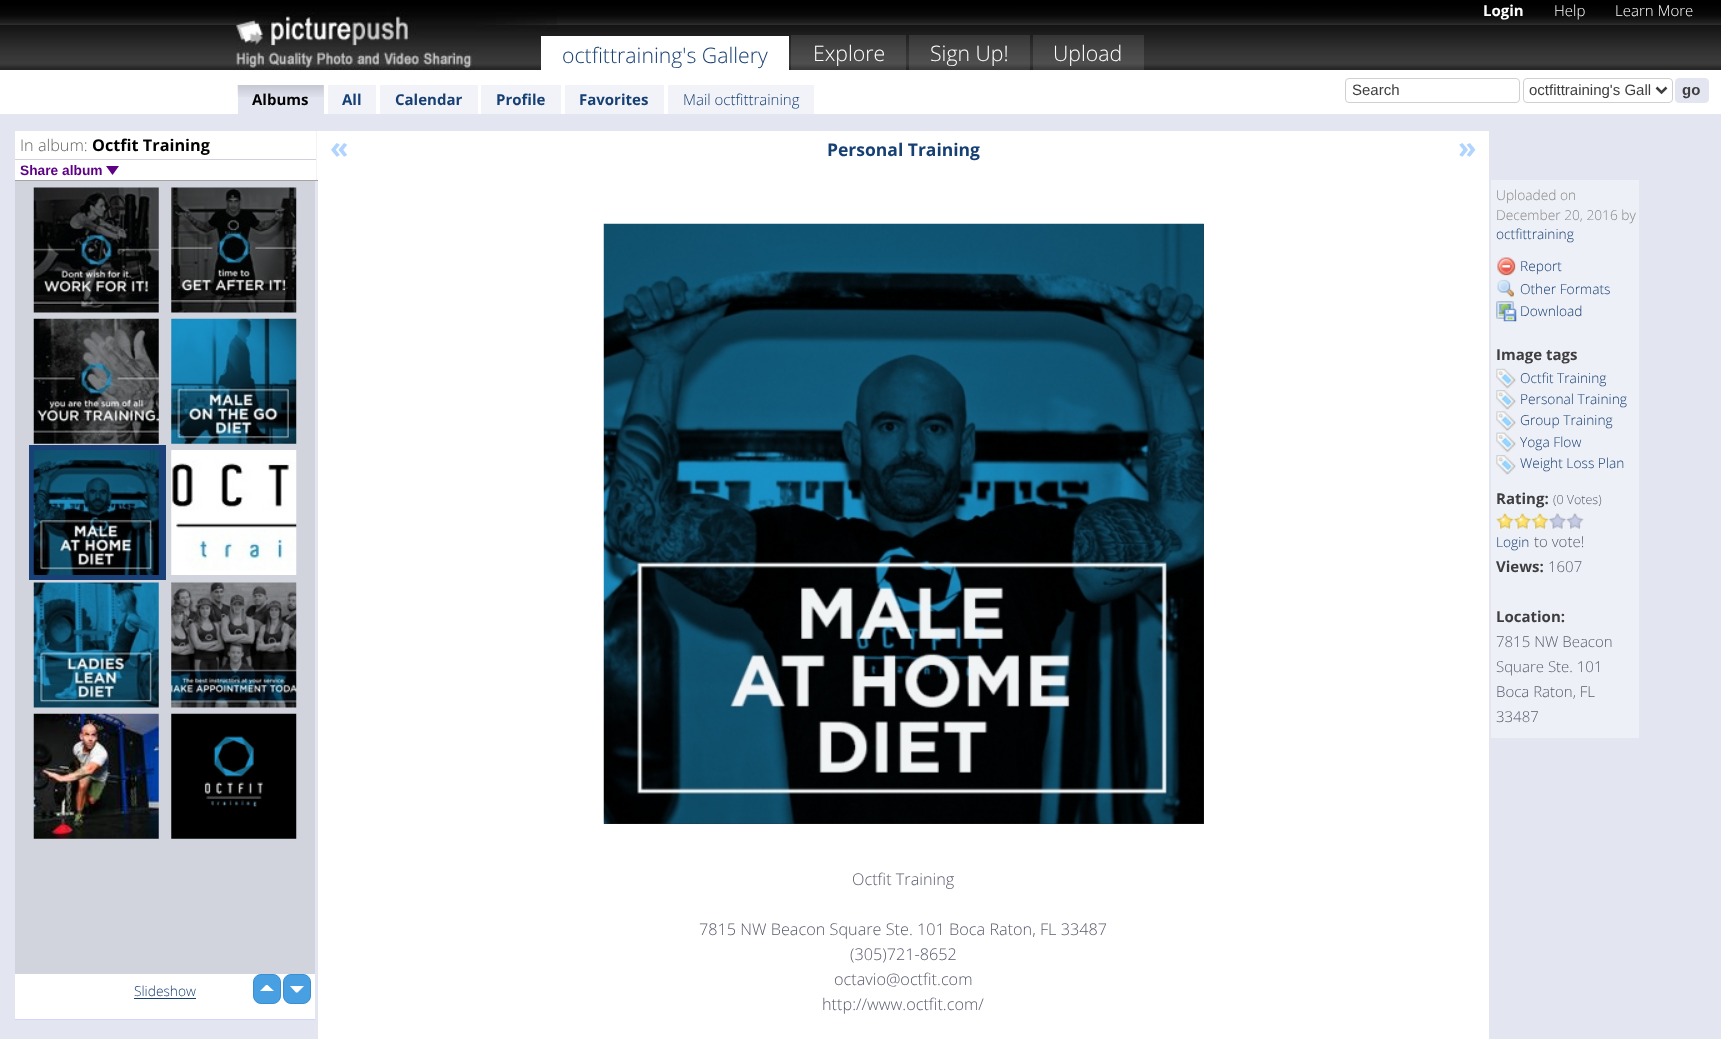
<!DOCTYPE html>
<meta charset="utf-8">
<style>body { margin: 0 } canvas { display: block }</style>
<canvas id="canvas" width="1721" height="1039"></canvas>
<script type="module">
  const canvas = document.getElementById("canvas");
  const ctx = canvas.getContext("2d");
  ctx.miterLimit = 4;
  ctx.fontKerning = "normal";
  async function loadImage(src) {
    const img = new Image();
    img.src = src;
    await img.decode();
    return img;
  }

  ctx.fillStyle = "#e3e6f1";
  ctx.fillRect(0, 0, 1721, 1039);
  ctx.drawImage(await loadImage("img1.png"), 0, 0, 1721, 70);
  ctx.drawImage(await loadImage("img2.png"), 236, 10, 321, 60);
  ctx.fillStyle = "#ffffff";
  ctx.fillRect(541, 36, 248, 34);
  ctx.font = "300 21.25px Open Sans";
  ctx.fillStyle = "#163f73";
  ctx.fillText("octfittraining's Gallery", 562, 63);
  ctx.fillStyle = "rgba(255, 255, 255, 0.1)";
  ctx.fillRect(791, 35, 115, 35);
  ctx.fillStyle = "#ffffff";
  ctx.fillText("Explore", 813, 61);
  ctx.fillStyle = "rgba(255, 255, 255, 0.1)";
  ctx.fillRect(909, 35, 121, 35);
  ctx.fillStyle = "#ffffff";
  ctx.fillText("Sign Up!", 930, 61);
  ctx.fillStyle = "rgba(255, 255, 255, 0.1)";
  ctx.fillRect(1033, 35, 111, 35);
  ctx.fillStyle = "#ffffff";
  ctx.fillText("Upload", 1053, 61);
  ctx.font = "bold 15px Open Sans";
  ctx.fillText("Login", 1483, 16);
  ctx.font = "300 15px Open Sans";
  ctx.fillText("Help", 1554, 16);
  ctx.fillText("Learn More", 1615, 16);
  ctx.fillRect(0, 70, 1721, 44);
  ctx.beginPath();
  ctx.roundRect(1345.5, 78.5, 174, 24, 3.5);
  ctx.strokeStyle = "#d0d0d0";
  ctx.stroke();
  ctx.font = "15px Liberation Sans";
  ctx.fillStyle = "#3e3e41";
  ctx.fillText("Search", 1352, 95);
  ctx.beginPath();
  ctx.roundRect(1523.5, 78.5, 149, 24, 3.5);
  ctx.stroke();
  ctx.beginPath();
  ctx.moveTo(1656.5, 87.5);
  ctx.lineTo(1661.5, 92.5);
  ctx.lineTo(1666.5, 87.5);
  ctx.strokeStyle = "#3e3e3e";
  ctx.lineWidth = 2.5;
  ctx.stroke();
  ctx.fillText("octfittraining's Gall", 1529, 95);
  ctx.fillStyle = "#e3e6f1";
  ctx.beginPath();
  ctx.roundRect(1675.5, 78.5, 33, 24, 3.5);
  ctx.fill();
  ctx.strokeStyle = "#e3e6f1";
  ctx.lineWidth = 1;
  ctx.stroke();
  ctx.font = "bold 15px Liberation Sans";
  ctx.fillStyle = "#3e3e41";
  ctx.fillText("go", 1682, 95);
  ctx.fillStyle = "#e3e6f1";
  ctx.fillRect(238, 85, 86, 29);
  ctx.drawImage(await loadImage("img3.png"), 237, 85, 87, 12);
  ctx.font = "bold 15px Open Sans";
  ctx.fillStyle = "#000000";
  ctx.fillText("Albums", 252, 105);
  ctx.fillStyle = "#f1f3f9";
  ctx.fillRect(328, 85, 48, 29);
  ctx.fillStyle = "#163f73";
  ctx.fillText("All", 342, 105);
  ctx.fillStyle = "#f1f3f9";
  ctx.fillRect(380, 85, 98, 29);
  ctx.fillStyle = "#163f73";
  ctx.fillText("Calendar", 395, 105);
  ctx.fillStyle = "#f1f3f9";
  ctx.fillRect(481, 85, 80, 29);
  ctx.fillStyle = "#163f73";
  ctx.fillText("Profile", 496, 105);
  ctx.fillStyle = "#f1f3f9";
  ctx.fillRect(565, 85, 99, 29);
  ctx.fillStyle = "#163f73";
  ctx.fillText("Favorites", 579, 105);
  ctx.fillStyle = "#f1f3f9";
  ctx.fillRect(668, 85, 146, 29);
  ctx.font = "300 15px Open Sans";
  ctx.fillStyle = "#163f73";
  ctx.fillText("Mail octfittraining", 683, 105);
  ctx.fillStyle = "#ffffff";
  ctx.fillRect(15, 131, 303, 49);
  ctx.fillStyle = "#f3f3f3";
  ctx.fillRect(316, 131, 1, 50);
  ctx.fillStyle = "#a4a4a4";
  ctx.fillRect(15, 180, 303, 1);
  ctx.font = "300 16.25px Open Sans";
  ctx.fillStyle = "#666666";
  ctx.fillText("In album:", 20, 151);
  ctx.font = "bold 16.25px Open Sans";
  ctx.fillStyle = "#000000";
  ctx.fillText("Octfit Training", 92, 151);
  ctx.fillStyle = "#d0d0e0";
  ctx.fillRect(15, 159, 301, 1);
  ctx.font = "bold 13.75px Liberation Sans";
  ctx.fillStyle = "#5e0085";
  ctx.fillText("Share album", 20, 175);
  ctx.beginPath();
  ctx.moveTo(106, 166);
  ctx.lineTo(119, 166);
  ctx.lineTo(112.5, 175);
  ctx.closePath();
  ctx.fill();
  ctx.fillStyle = "#d1d4dd";
  ctx.fillRect(15, 181, 300, 793);
  ctx.fillStyle = "#cfd4ff";
  ctx.fillRect(15, 1019, 300, 1);
  ctx.drawImage(await loadImage("img4.png"), 33, 187, 126, 126);
  ctx.drawImage(await loadImage("img5.png"), 171, 187, 126, 126);
  ctx.drawImage(await loadImage("img6.png"), 33, 318, 126, 126);
  ctx.drawImage(await loadImage("img7.png"), 171, 318, 126, 126);
  ctx.fillStyle = "#194077";
  ctx.fillRect(29, 445, 137, 135);
  ctx.drawImage(await loadImage("img8.png"), 33, 450, 126, 125);
  ctx.drawImage(await loadImage("img9.png"), 171, 450, 126, 125);
  ctx.drawImage(await loadImage("img10.png"), 33, 582, 126, 126);
  ctx.drawImage(await loadImage("img11.png"), 171, 582, 126, 126);
  ctx.drawImage(await loadImage("img12.png"), 33, 713, 126, 126);
  ctx.drawImage(await loadImage("img13.png"), 171, 713, 126, 126);
  ctx.fillStyle = "#ffffff";
  ctx.fillRect(15, 974, 300, 45);
  ctx.fillStyle = "#48a0e3";
  ctx.beginPath();
  ctx.roundRect(253.5, 974.5, 27, 29, 7.5);
  ctx.fill();
  ctx.strokeStyle = "#3890d3";
  ctx.stroke();
  ctx.beginPath();
  ctx.roundRect(283.5, 974.5, 27, 29, 7.5);
  ctx.fill();
  ctx.stroke();
  ctx.fillStyle = "#ffffff";
  ctx.beginPath();
  ctx.moveTo(274, 991);
  ctx.lineTo(260, 991);
  ctx.lineTo(266, 985);
  ctx.lineTo(267.5, 985);
  ctx.closePath();
  ctx.moveTo(290, 986);
  ctx.lineTo(304, 986);
  ctx.lineTo(297.5, 992.5);
  ctx.lineTo(296, 992.5);
  ctx.closePath();
  ctx.fill();
  ctx.font = "300 13.75px Open Sans";
  ctx.fillStyle = "#163f73";
  ctx.fillText("Slideshow", 134, 996);
  ctx.fillRect(134, 998, 62, 1);
  ctx.fillStyle = "#ffffff";
  ctx.fillRect(318, 131, 1171, 908);
  ctx.font = "bold 30px Open Sans";
  ctx.fillStyle = "#b0d4fe";
  ctx.fillText("«", 330, 158);
  ctx.font = "bold 17.5px Open Sans";
  ctx.fillStyle = "#163f73";
  ctx.fillText("Personal Training", 827, 156);
  ctx.font = "bold 30px Open Sans";
  ctx.fillStyle = "#b0d4fe";
  ctx.fillText("»", 1458, 158);
  ctx.fillStyle = "#333333";
  ctx.fillRect(604, 224, 600, 600);
  ctx.drawImage(await loadImage("img14.png"), 603, 223, 601, 601);
  ctx.fillStyle = "#eef0f7";
  ctx.fillRect(1491, 180, 148, 558);
  ctx.font = "300 13.75px Open Sans";
  ctx.fillStyle = "#888888";
  ctx.fillText("Uploaded on", 1496, 200);
  ctx.fillText("December 20, 2016 by", 1496, 220);
  ctx.fillStyle = "#163f73";
  ctx.fillText("octfittraining", 1496, 239);
  ctx.drawImage(await loadImage("img15.png"), 1497, 257, 19, 19);
  ctx.fillText("Report", 1520, 271);
  ctx.drawImage(await loadImage("img16.png"), 1497, 279, 17, 19);
  ctx.fillText("Other Formats", 1520, 294);
  ctx.drawImage(await loadImage("img17.png"), 1496, 301, 21, 21);
  ctx.fillText("Download", 1520, 316);
  ctx.font = "bold 15px Open Sans";
  ctx.fillStyle = "#3e3e41";
  ctx.fillText("Image tags", 1496, 360);
  ctx.drawImage(await loadImage("img18.png"), 1496, 368, 20, 21);
  ctx.font = "300 13.75px Open Sans";
  ctx.fillStyle = "#163f73";
  ctx.fillText("Octfit Training", 1520, 383);
  ctx.drawImage(await loadImage("img19.png"), 1496, 390, 20, 20);
  ctx.fillText("Personal Training", 1520, 404);
  ctx.drawImage(await loadImage("img20.png"), 1496, 411, 20, 20);
  ctx.fillText("Group Training", 1520, 425);
  ctx.drawImage(await loadImage("img21.png"), 1496, 432, 20, 21);
  ctx.fillText("Yoga Flow", 1520, 447);
  ctx.drawImage(await loadImage("img19.png"), 1496, 455, 20, 20);
  ctx.fillText("Weight Loss Plan", 1520, 468);
  ctx.font = "bold 15px Open Sans";
  ctx.fillStyle = "#3e3e41";
  ctx.fillText("Rating:", 1496, 504);
  ctx.font = "300 12.5px Open Sans";
  ctx.fillStyle = "#5a5c6c";
  ctx.fillText("(0 Votes)", 1553, 504);
  ctx.drawImage(await loadImage("img22.png"), 1496, 512, 18, 17);
  ctx.drawImage(await loadImage("img23.png"), 1513, 512, 19, 17);
  ctx.drawImage(await loadImage("img24.png"), 1531, 512, 18, 17);
  ctx.drawImage(await loadImage("img25.png"), 1548, 513, 19, 16);
  ctx.drawImage(await loadImage("img26.png"), 1566, 512, 18, 17);
  ctx.font = "300 13.75px Open Sans";
  ctx.fillStyle = "#163f73";
  ctx.fillText("Login", 1496, 547);
  ctx.font = "300 15px Open Sans";
  ctx.fillStyle = "#5a5c6c";
  ctx.fillText("to vote!", 1534, 547);
  ctx.font = "bold 15px Open Sans";
  ctx.fillStyle = "#3e3e41";
  ctx.fillText("Views:", 1496, 572);
  ctx.font = "300 15px Open Sans";
  ctx.fillStyle = "#5a5c6c";
  ctx.fillText("1607", 1548, 572);
  ctx.font = "bold 15px Open Sans";
  ctx.fillStyle = "#3e3e41";
  ctx.fillText("Location:", 1496, 622);
  ctx.font = "300 15px Open Sans";
  ctx.fillStyle = "#5a5c6c";
  ctx.fillText("7815 NW Beacon", 1496, 647);
  ctx.fillText("Square Ste. 101", 1496, 672);
  ctx.fillText("Boca Raton, FL", 1496, 697);
  ctx.fillText("33487", 1496, 722);
  ctx.font = "300 16.25px Open Sans";
  ctx.fillText("Octfit Training", 852, 885);
  ctx.fillText("7815 NW Beacon Square Ste. 101 Boca Raton, FL 33487", 699, 935);
  ctx.fillText("(305)721-8652", 850, 960);
  ctx.fillText("octavio@octfit.com", 834, 985);
  ctx.fillText("http://www.octfit.com/", 822, 1010);
</script>
